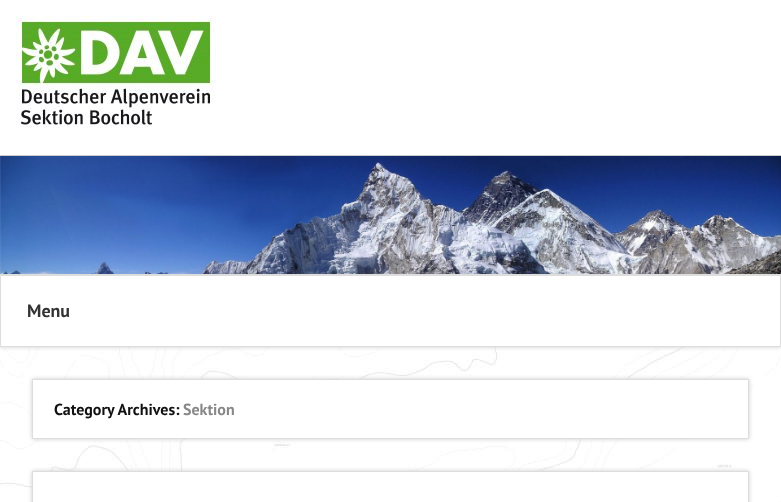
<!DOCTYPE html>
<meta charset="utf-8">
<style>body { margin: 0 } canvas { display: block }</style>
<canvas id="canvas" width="781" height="502"></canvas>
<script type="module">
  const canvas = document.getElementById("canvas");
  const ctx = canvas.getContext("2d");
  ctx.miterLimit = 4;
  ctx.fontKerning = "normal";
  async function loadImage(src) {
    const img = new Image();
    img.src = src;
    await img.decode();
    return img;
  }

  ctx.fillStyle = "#ffffff";
  ctx.fillRect(0, 0, 781, 502);
  ctx.drawImage(await loadImage("img1.png"), 0, 347, 781, 155);
  ctx.drawImage(await loadImage("img2.png"), 16, 16, 200, 112);
  ctx.fillStyle = "#cccccc";
  ctx.fillRect(0, 155, 781, 1);
  ctx.filter = "blur(2px)";
  ctx.beginPath();
  ctx.rect(0, 275, 781, 72);
  ctx.fill();
  ctx.filter = "none";
  ctx.drawImage(await loadImage("img3.png"), 0, 156, 781, 118);
  ctx.fillStyle = "#dddddd";
  ctx.fillRect(0, 274, 781, 1);
  ctx.fillStyle = "#ffffff";
  ctx.beginPath();
  ctx.rect(0.5, 275.5, 780, 71);
  ctx.fill();
  ctx.strokeStyle = "#dddddd";
  ctx.stroke();
  ctx.font = "bold 18px PT Sans";
  ctx.fillStyle = "#333333";
  ctx.fillText("Menu", 27, 317);
  ctx.fillStyle = "#cccccc";
  ctx.filter = "blur(2px)";
  ctx.beginPath();
  ctx.rect(32, 379, 717, 60);
  ctx.fill();
  ctx.filter = "none";
  ctx.fillStyle = "#ffffff";
  ctx.beginPath();
  ctx.rect(32.5, 379.5, 716, 59);
  ctx.fill();
  ctx.stroke();
  ctx.font = "bold 16px PT Sans";
  ctx.fillStyle = "#111111";
  ctx.fillText("Category Archives:", 54, 415);
  ctx.fillStyle = "#888888";
  ctx.fillText("Sektion", 183, 415);
  ctx.fillStyle = "#cccccc";
  ctx.filter = "blur(2px)";
  ctx.beginPath();
  ctx.rect(32, 471, 717, 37);
  ctx.fill();
  ctx.filter = "none";
  ctx.fillStyle = "#ffffff";
  ctx.beginPath();
  ctx.rect(32.5, 471.5, 716, 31);
  ctx.fill();
  ctx.stroke();
</script>
